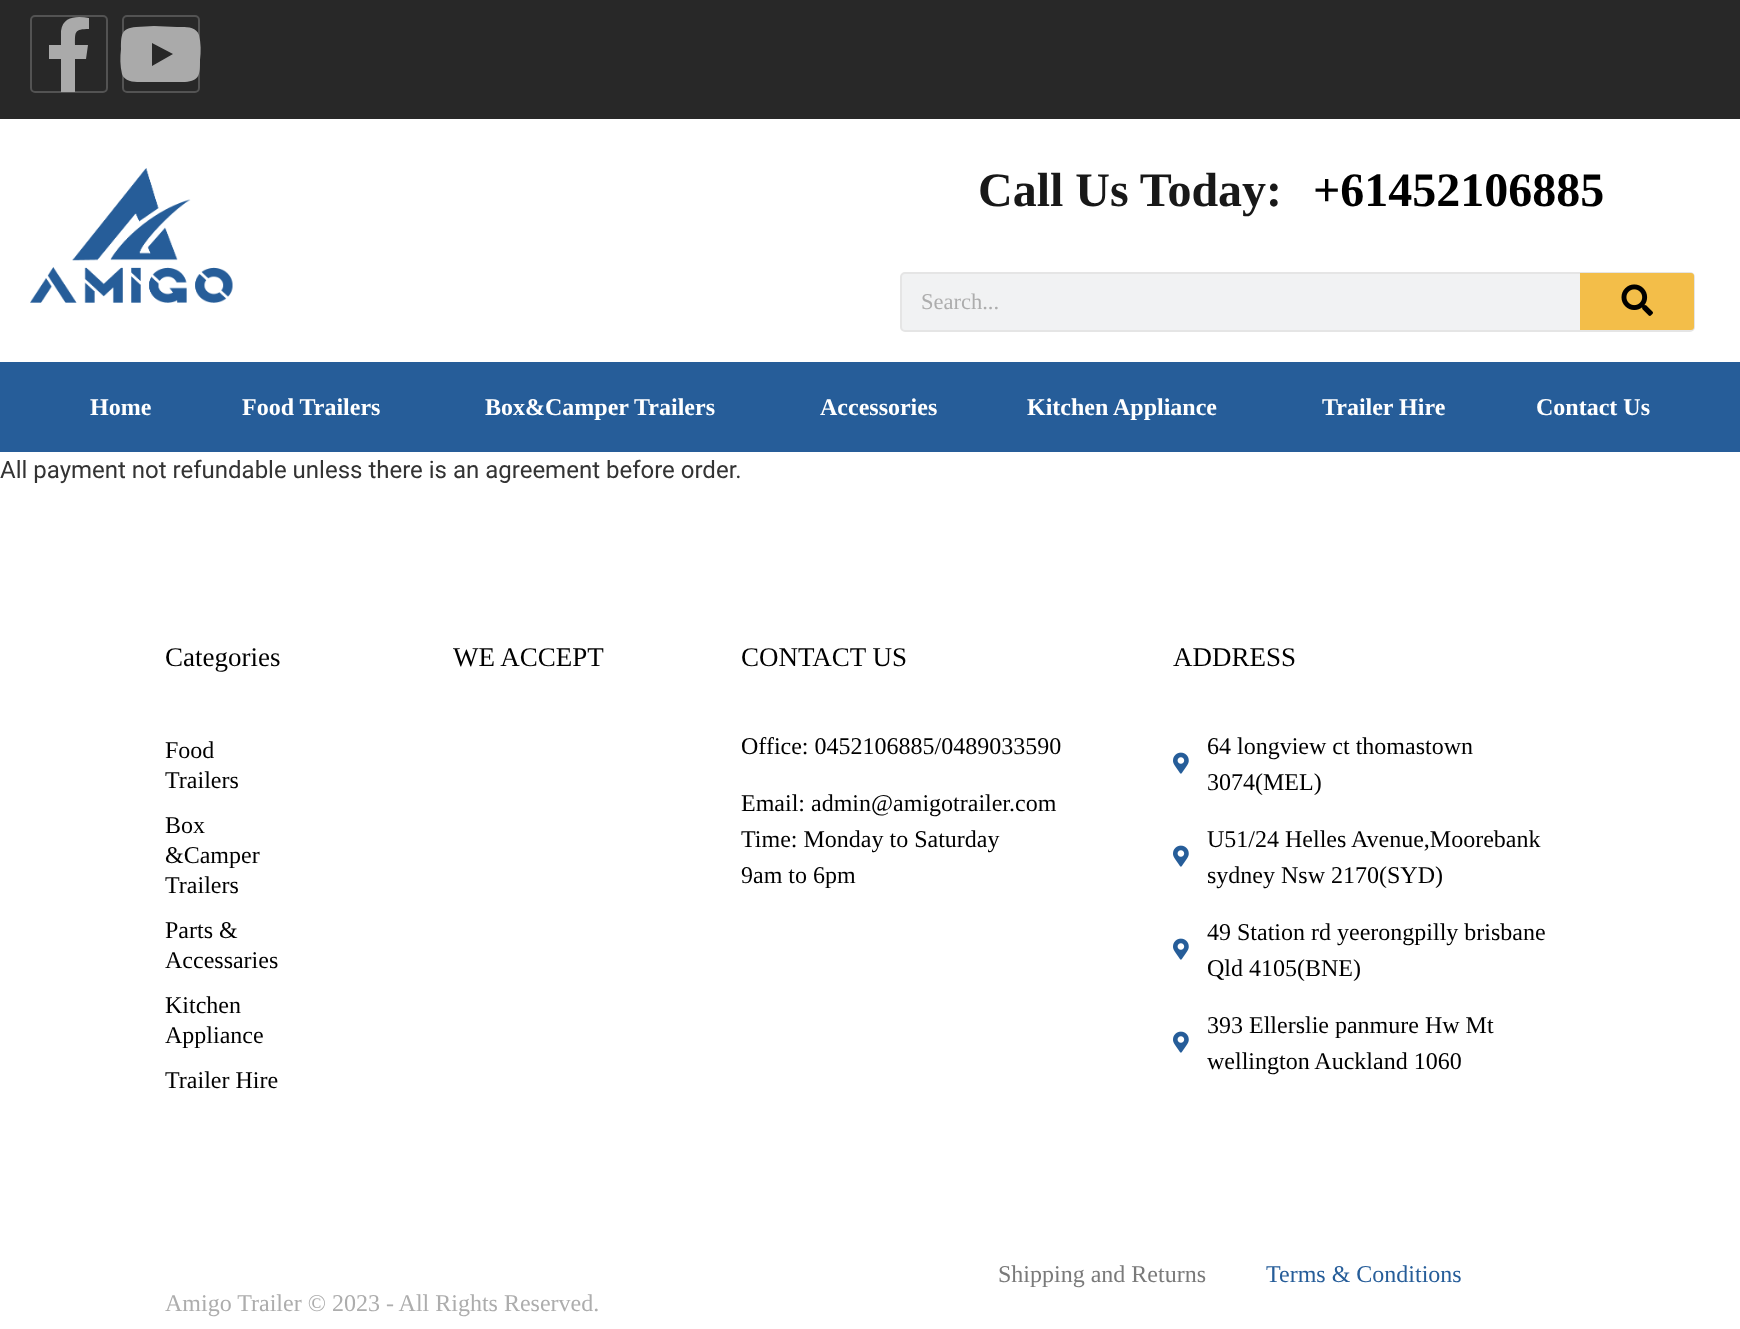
<!DOCTYPE html>
<meta charset="utf-8">
<style>body { margin: 0 } canvas { display: block }</style>
<canvas id="canvas" width="1740" height="1329"></canvas>
<script type="module">
  const canvas = document.getElementById("canvas");
  const ctx = canvas.getContext("2d");
  ctx.miterLimit = 4;
  ctx.fontKerning = "normal";
  async function loadImage(src) {
    const img = new Image();
    img.src = src;
    await img.decode();
    return img;
  }

  ctx.fillStyle = "#ffffff";
  ctx.fillRect(0, 0, 1740, 1329);
  ctx.fillStyle = "#282828";
  ctx.fillRect(0, 0, 1740, 119);
  ctx.beginPath();
  ctx.roundRect(31, 16, 76, 76, 4);
  ctx.strokeStyle = "#535353";
  ctx.lineWidth = 2;
  ctx.stroke();
  ctx.fillStyle = "#aaaaaa";
  ctx.beginPath();
  ctx.moveTo(86, 59);
  ctx.lineTo(75, 59);
  ctx.lineTo(75, 92);
  ctx.lineTo(61, 92);
  ctx.lineTo(61, 59);
  ctx.lineTo(49, 59);
  ctx.lineTo(49, 45);
  ctx.lineTo(61, 45);
  ctx.lineTo(61, 31);
  ctx.bezierCurveTo(63, 16, 77, 16, 89, 18);
  ctx.lineTo(89, 29);
  ctx.bezierCurveTo(74, 29, 75, 32, 75, 45);
  ctx.lineTo(88, 45);
  ctx.closePath();
  ctx.fill();
  ctx.beginPath();
  ctx.roundRect(123, 16, 76, 76, 4);
  ctx.stroke();
  ctx.beginPath();
  ctx.moveTo(199, 35);
  ctx.bezierCurveTo(201, 43, 201, 52, 200, 60);
  ctx.bezierCurveTo(200, 74, 200, 81, 185, 82);
  ctx.lineTo(167, 82);
  ctx.lineTo(144, 82);
  ctx.bezierCurveTo(137, 82, 125, 83, 122, 74);
  ctx.bezierCurveTo(120, 66, 120, 57, 121, 49);
  ctx.bezierCurveTo(121, 35, 121, 28, 136, 27);
  ctx.lineTo(154, 26);
  ctx.lineTo(177, 27);
  ctx.bezierCurveTo(185, 27, 196, 26, 199, 35);
  ctx.closePath();
  ctx.moveTo(152, 66);
  ctx.lineTo(173, 54);
  ctx.lineTo(152, 43);
  ctx.closePath();
  ctx.fill();
  ctx.drawImage(await loadImage("img1.png"), 30, 168, 203, 135);
  ctx.font = "bold 48px Liberation Serif";
  ctx.fillStyle = "#181818";
  ctx.fillText("Call Us Today:", 978, 206);
  ctx.fillStyle = "#000000";
  ctx.fillText("+61452106885", 1313, 206);
  ctx.fillStyle = "#f1f2f3";
  ctx.beginPath();
  ctx.roundRect(901, 273, 793, 58, 4);
  ctx.fill();
  ctx.strokeStyle = "#e5e5e5";
  ctx.stroke();
  ctx.font = "22.5px Liberation Serif";
  ctx.fillStyle = "#adadad";
  ctx.fillText("Search...", 921, 309);
  ctx.fillStyle = "#f3be49";
  ctx.beginPath();
  ctx.roundRect(1580, 273, 114, 57, [0, 3, 3, 0]);
  ctx.fill();
  ctx.drawImage(await loadImage("img2.png"), 1621, 284, 32, 32);
  ctx.fillStyle = "#265d99";
  ctx.fillRect(0, 362, 1740, 90);
  ctx.font = "bold 24px Liberation Serif";
  ctx.fillStyle = "#ffffff";
  ctx.fillText("Home", 90, 415);
  ctx.fillText("Food Trailers", 242, 415);
  ctx.fillText("Box&Camper Trailers", 485, 415);
  ctx.fillText("Accessories", 820, 415);
  ctx.fillText("Kitchen Appliance", 1027, 415);
  ctx.fillText("Trailer Hire", 1322, 415);
  ctx.fillText("Contact Us", 1536, 415);
  ctx.font = "24px Roboto";
  ctx.fillStyle = "#333333";
  ctx.fillText("All payment not refundable unless there is an agreement before order.", 0, 478);
  ctx.font = "27px Liberation Serif";
  ctx.fillStyle = "#000000";
  ctx.fillText("Categories", 165, 666);
  ctx.font = "24px Liberation Serif";
  ctx.fillText("Food", 165, 758);
  ctx.fillText("Trailers", 165, 788);
  ctx.fillText("Box", 165, 833);
  ctx.fillText("&Camper", 165, 863);
  ctx.fillText("Trailers", 165, 893);
  ctx.fillText("Parts &", 165, 938);
  ctx.fillText("Accessaries", 165, 968);
  ctx.fillText("Kitchen", 165, 1013);
  ctx.fillText("Appliance", 165, 1043);
  ctx.fillText("Trailer Hire", 165, 1088);
  ctx.font = "27px Liberation Serif";
  ctx.fillText("WE ACCEPT", 453, 666);
  ctx.fillText("CONTACT US", 741, 666);
  ctx.font = "24px Liberation Serif";
  ctx.fillText("Office: 0452106885/0489033590", 741, 754);
  ctx.fillText("Email: admin@amigotrailer.com", 741, 811);
  ctx.fillText("Time: Monday to Saturday", 741, 847);
  ctx.fillText("9am to 6pm", 741, 883);
  ctx.font = "27px Liberation Serif";
  ctx.fillText("ADDRESS", 1173, 666);
  ctx.drawImage(await loadImage("img3.png"), 1173, 752, 16, 22);
  ctx.font = "24px Liberation Serif";
  ctx.fillText("64 longview ct thomastown", 1207, 754);
  ctx.fillText("3074(MEL)", 1207, 790);
  ctx.drawImage(await loadImage("img3.png"), 1173, 845, 16, 22);
  ctx.fillText("U51/24 Helles Avenue,Moorebank", 1207, 847);
  ctx.fillText("sydney Nsw 2170(SYD)", 1207, 883);
  ctx.drawImage(await loadImage("img3.png"), 1173, 938, 16, 22);
  ctx.fillText("49 Station rd yeerongpilly brisbane", 1207, 940);
  ctx.fillText("Qld 4105(BNE)", 1207, 976);
  ctx.drawImage(await loadImage("img3.png"), 1173, 1031, 16, 22);
  ctx.fillText("393 Ellerslie panmure Hw Mt", 1207, 1033);
  ctx.fillText("wellington Auckland 1060", 1207, 1069);
  ctx.fillStyle = "#7a7a7a";
  ctx.fillText("Shipping and Returns", 998, 1282);
  ctx.fillStyle = "#265d99";
  ctx.fillText("Terms & Conditions", 1266, 1282);
  ctx.fillStyle = "#adadad";
  ctx.fillText("Amigo Trailer © 2023 - All Rights Reserved.", 165, 1311);
</script>
